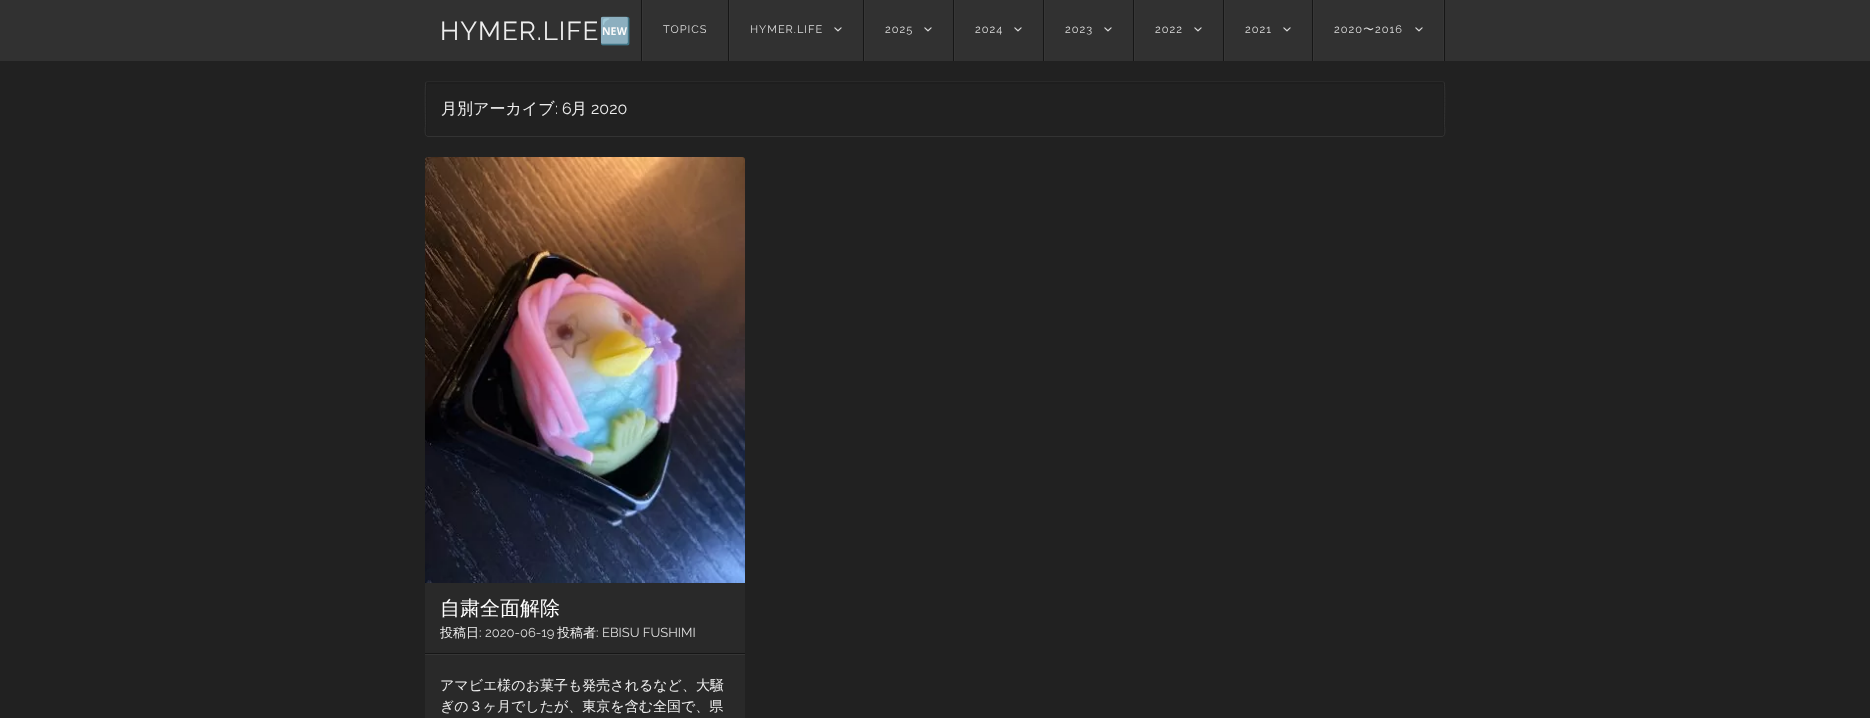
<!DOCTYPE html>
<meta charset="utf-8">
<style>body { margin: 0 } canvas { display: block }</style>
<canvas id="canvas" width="1870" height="718"></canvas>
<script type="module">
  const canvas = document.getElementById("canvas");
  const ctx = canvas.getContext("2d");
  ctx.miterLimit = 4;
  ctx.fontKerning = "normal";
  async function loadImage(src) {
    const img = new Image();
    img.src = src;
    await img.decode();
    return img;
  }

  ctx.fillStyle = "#212121";
  ctx.fillRect(0, 0, 1870, 718);
  ctx.fillStyle = "#313131";
  ctx.fillRect(0, 0, 1870, 61);
  ctx.letterSpacing = "1px";
  ctx.font = "26px Raleway";
  ctx.fillStyle = "#eeeeee";
  ctx.fillText("HYMER.LIFE", 440, 40);
  ctx.font = "26px Noto Color Emoji";
  ctx.fillText("🆕", 599, 40);
  ctx.fillStyle = "#161616";
  ctx.fillRect(1444, 0, 1, 61);
  ctx.fillRect(641, 0, 1, 61);
  ctx.fillStyle = "#363636";
  ctx.fillRect(642, 0, 1, 61);
  ctx.font = "11px Raleway";
  ctx.fillStyle = "#dddddd";
  ctx.fillText("TOPICS", 663, 33);
  ctx.fillStyle = "#161616";
  ctx.fillRect(728, 0, 1, 61);
  ctx.fillStyle = "#363636";
  ctx.fillRect(729, 0, 1, 61);
  ctx.fillStyle = "#dddddd";
  ctx.fillText("HYMER.LIFE", 750, 33);
  ctx.drawImage(await loadImage("img1.png"), 834, 27, 8, 5);
  ctx.fillStyle = "#161616";
  ctx.fillRect(863, 0, 1, 61);
  ctx.fillStyle = "#363636";
  ctx.fillRect(864, 0, 1, 61);
  ctx.fillStyle = "#dddddd";
  ctx.fillText("2025", 885, 33);
  ctx.drawImage(await loadImage("img1.png"), 924, 27, 8, 5);
  ctx.fillStyle = "#161616";
  ctx.fillRect(953, 0, 1, 61);
  ctx.fillStyle = "#363636";
  ctx.fillRect(954, 0, 1, 61);
  ctx.fillStyle = "#dddddd";
  ctx.fillText("2024", 975, 33);
  ctx.drawImage(await loadImage("img1.png"), 1014, 27, 8, 5);
  ctx.fillStyle = "#161616";
  ctx.fillRect(1043, 0, 1, 61);
  ctx.fillStyle = "#363636";
  ctx.fillRect(1044, 0, 1, 61);
  ctx.fillStyle = "#dddddd";
  ctx.fillText("2023", 1065, 33);
  ctx.drawImage(await loadImage("img1.png"), 1104, 27, 8, 5);
  ctx.fillStyle = "#161616";
  ctx.fillRect(1133, 0, 1, 61);
  ctx.fillStyle = "#363636";
  ctx.fillRect(1134, 0, 1, 61);
  ctx.fillStyle = "#dddddd";
  ctx.fillText("2022", 1155, 33);
  ctx.drawImage(await loadImage("img1.png"), 1194, 27, 8, 5);
  ctx.fillStyle = "#161616";
  ctx.fillRect(1223, 0, 1, 61);
  ctx.fillStyle = "#363636";
  ctx.fillRect(1224, 0, 1, 61);
  ctx.fillStyle = "#dddddd";
  ctx.fillText("2021", 1245, 33);
  ctx.drawImage(await loadImage("img1.png"), 1283, 27, 8, 5);
  ctx.fillStyle = "#161616";
  ctx.fillRect(1312, 0, 1, 61);
  ctx.fillStyle = "#363636";
  ctx.fillRect(1443, 0, 1, 61);
  ctx.fillRect(1313, 0, 1, 61);
  ctx.fillStyle = "#dddddd";
  ctx.fillText("2020", 1334, 33);
  ctx.font = "500 11px WenQuanYi Zen Hei";
  ctx.fillText("〜", 1363, 33);
  ctx.font = "11px Raleway";
  ctx.fillText("2016", 1375, 33);
  ctx.drawImage(await loadImage("img1.png"), 1415, 27, 8, 5);
  ctx.fillStyle = "#1e1e1e";
  ctx.beginPath();
  ctx.moveTo(428, 84);
  ctx.lineTo(1442, 84);
  ctx.lineTo(1443, 85);
  ctx.lineTo(1443, 127);
  ctx.bezierCurveTo(1443, 127, 1445, 136, 1442, 136);
  ctx.bezierCurveTo(1443, 136, 1444, 135, 1444, 134);
  ctx.lineTo(1444, 84);
  ctx.bezierCurveTo(1444, 83, 1443, 82, 1442, 82);
  ctx.lineTo(428, 82);
  ctx.bezierCurveTo(427, 82, 426, 83, 426, 84);
  ctx.lineTo(426, 134);
  ctx.bezierCurveTo(426, 135, 426, 135, 427, 136);
  ctx.lineTo(427, 93);
  ctx.bezierCurveTo(427, 93, 425, 84, 428, 84);
  ctx.closePath();
  ctx.fill();
  ctx.beginPath();
  ctx.moveTo(426, 82);
  ctx.lineTo(428, 81.5);
  ctx.lineTo(1442, 81.5);
  ctx.lineTo(1444, 82);
  ctx.strokeStyle = "#292929";
  ctx.stroke();
  ctx.beginPath();
  ctx.moveTo(1444, 82);
  ctx.bezierCurveTo(1445.5, 84, 1444.5, 120.5, 1444.5, 125.5);
  ctx.bezierCurveTo(1444.5, 126, 1446.5, 136.5, 1442, 136.5);
  ctx.lineTo(428, 136.5);
  ctx.bezierCurveTo(423.5, 136.5, 425.5, 126, 425.5, 125.5);
  ctx.bezierCurveTo(425.5, 120.5, 424.5, 84, 426, 82);
  ctx.strokeStyle = "#333333";
  ctx.stroke();
  ctx.letterSpacing = "0px";
  ctx.font = "500 16px WenQuanYi Zen Hei";
  ctx.fillStyle = "#eeeeee";
  ctx.fillText("月別アーカイブ", 441, 114);
  ctx.font = "16px Raleway";
  ctx.fillText(": 6", 555, 114);
  ctx.font = "500 16px WenQuanYi Zen Hei";
  ctx.fillText("月", 571, 114);
  ctx.font = "16px Raleway";
  ctx.fillText("2020", 591, 114);
  ctx.fillStyle = "#292929";
  ctx.beginPath();
  ctx.roundRect(425, 157, 320, 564, 3);
  ctx.fill();
  ctx.drawImage(await loadImage("img2.png"), 425, 157, 320, 426);
  ctx.fillStyle = "#161616";
  ctx.fillRect(425, 653, 320, 1);
  ctx.font = "500 20px WenQuanYi Zen Hei";
  ctx.fillStyle = "#ffffff";
  ctx.fillText("自粛全面解除", 440, 615);
  ctx.font = "500 13px WenQuanYi Zen Hei";
  ctx.fillStyle = "#eeeeee";
  ctx.fillText("投稿日", 440, 637);
  ctx.font = "13px Raleway";
  ctx.fillText(":", 479, 637);
  ctx.fillStyle = "#dddddd";
  ctx.fillText("2020-06-19", 485, 637);
  ctx.font = "500 13px WenQuanYi Zen Hei";
  ctx.fillStyle = "#eeeeee";
  ctx.fillText("投稿者", 557, 637);
  ctx.font = "13px Raleway";
  ctx.fillText(":", 596, 637);
  ctx.fillStyle = "#dddddd";
  ctx.fillText("EBISU FUSHIMI", 602, 637);
  ctx.fillStyle = "#363636";
  ctx.fillRect(425, 654, 320, 1);
  ctx.font = "500 14px WenQuanYi Zen Hei";
  ctx.fillStyle = "#eeeeee";
  ctx.fillText("アマビエ様のお菓子も発売されるなど、大騒", 440, 690);
  ctx.fillText("ぎの３ヶ月でしたが、東京を含む全国で、県", 440, 711);
</script>
